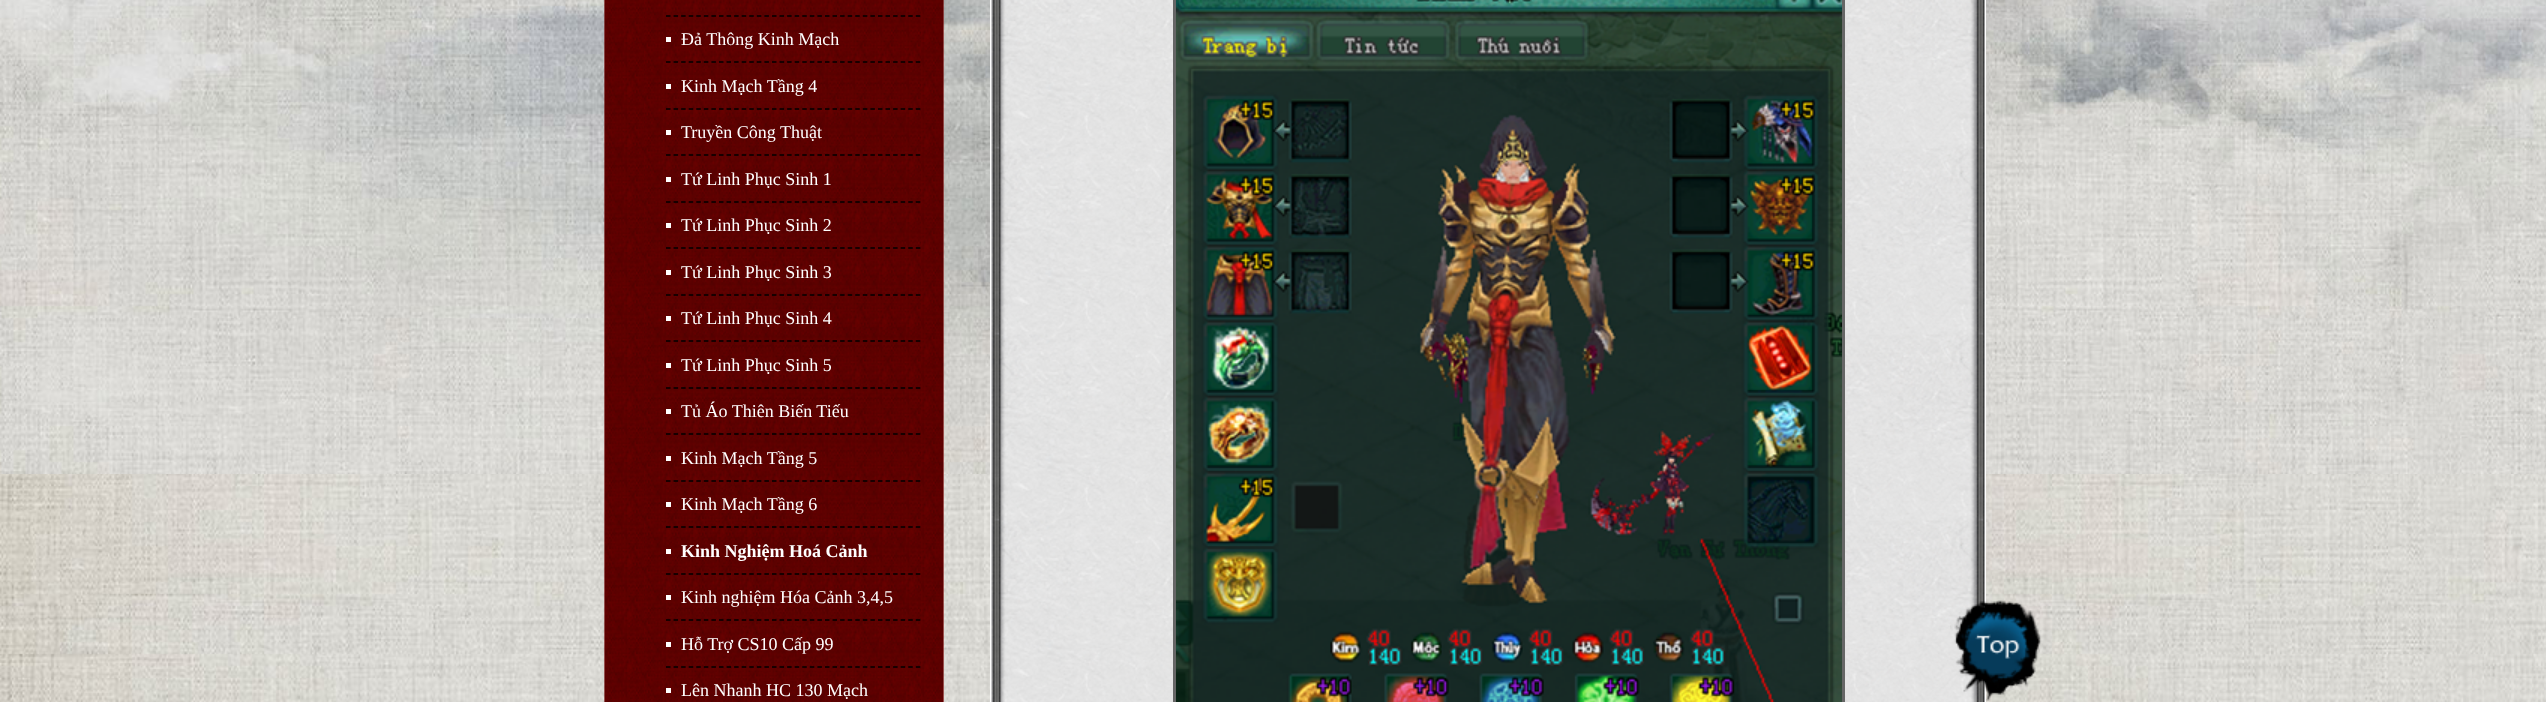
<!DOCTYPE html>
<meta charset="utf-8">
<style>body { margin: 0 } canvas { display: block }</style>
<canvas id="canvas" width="2546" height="702"></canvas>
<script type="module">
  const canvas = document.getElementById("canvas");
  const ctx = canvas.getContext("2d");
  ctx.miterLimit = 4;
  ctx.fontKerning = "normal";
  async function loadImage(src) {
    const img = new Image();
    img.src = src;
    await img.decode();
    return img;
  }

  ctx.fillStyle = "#ffffff";
  ctx.fillRect(0, 0, 2546, 702);
  ctx.drawImage(await loadImage("img1.png"), 0, 474, 2546, 228);
  ctx.drawImage(await loadImage("img2.png"), 0, 0, 2546, 474);
  ctx.drawImage(await loadImage("img3.png"), 604, 0, 340, 702);
  ctx.drawImage(await loadImage("img4.png"), 604, 0, 340, 702);
  ctx.drawImage(await loadImage("img5.png"), 644, 0, 277, 702);
  ctx.save();
  ctx.beginPath();
  ctx.rect(666, 0, 255, 17);
  ctx.clip();
  ctx.beginPath();
  ctx.moveTo(666, 16);
  ctx.lineTo(958.5, 16);
  ctx.strokeStyle = "#000000";
  ctx.lineWidth = 1.5;
  ctx.setLineDash([4.5, 3.07]);
  ctx.stroke();
  ctx.restore();
  ctx.fillRect(666, 37, 5, 5);
  ctx.save();
  ctx.beginPath();
  ctx.rect(666, 17, 255, 46);
  ctx.clip();
  ctx.beginPath();
  ctx.moveTo(666, 62);
  ctx.lineTo(958.5, 62);
  ctx.strokeStyle = "#000000";
  ctx.lineWidth = 1.5;
  ctx.setLineDash([4.5, 3.07]);
  ctx.stroke();
  ctx.restore();
  ctx.font = "18px Liberation Serif";
  ctx.fillText("Đả Thông Kinh Mạch", 681, 45);
  ctx.fillRect(666, 84, 5, 5);
  ctx.save();
  ctx.beginPath();
  ctx.rect(666, 63, 255, 47);
  ctx.clip();
  ctx.beginPath();
  ctx.moveTo(666, 109);
  ctx.lineTo(958.5, 109);
  ctx.strokeStyle = "#000000";
  ctx.lineWidth = 1.5;
  ctx.setLineDash([4.5, 3.07]);
  ctx.stroke();
  ctx.restore();
  ctx.fillText("Kinh Mạch Tầng 4", 681, 92);
  ctx.fillRect(666, 130, 5, 5);
  ctx.save();
  ctx.beginPath();
  ctx.rect(666, 110, 255, 46);
  ctx.clip();
  ctx.beginPath();
  ctx.moveTo(666, 155);
  ctx.lineTo(958.5, 155);
  ctx.strokeStyle = "#000000";
  ctx.lineWidth = 1.5;
  ctx.setLineDash([4.5, 3.07]);
  ctx.stroke();
  ctx.restore();
  ctx.fillText("Truyền Công Thuật", 681, 138);
  ctx.fillRect(666, 177, 5, 5);
  ctx.save();
  ctx.beginPath();
  ctx.rect(666, 156, 255, 47);
  ctx.clip();
  ctx.beginPath();
  ctx.moveTo(666, 202);
  ctx.lineTo(958.5, 202);
  ctx.strokeStyle = "#000000";
  ctx.lineWidth = 1.5;
  ctx.setLineDash([4.5, 3.07]);
  ctx.stroke();
  ctx.restore();
  ctx.fillText("Tứ Linh Phục Sinh 1", 681, 185);
  ctx.fillRect(666, 223, 5, 5);
  ctx.save();
  ctx.beginPath();
  ctx.rect(666, 203, 255, 46);
  ctx.clip();
  ctx.beginPath();
  ctx.moveTo(666, 248);
  ctx.lineTo(958.5, 248);
  ctx.strokeStyle = "#000000";
  ctx.lineWidth = 1.5;
  ctx.setLineDash([4.5, 3.07]);
  ctx.stroke();
  ctx.restore();
  ctx.fillText("Tứ Linh Phục Sinh 2", 681, 231);
  ctx.fillRect(666, 270, 5, 5);
  ctx.save();
  ctx.beginPath();
  ctx.rect(666, 249, 255, 47);
  ctx.clip();
  ctx.beginPath();
  ctx.moveTo(666, 295);
  ctx.lineTo(958.5, 295);
  ctx.strokeStyle = "#000000";
  ctx.lineWidth = 1.5;
  ctx.setLineDash([4.5, 3.07]);
  ctx.stroke();
  ctx.restore();
  ctx.fillText("Tứ Linh Phục Sinh 3", 681, 278);
  ctx.fillRect(666, 316, 5, 5);
  ctx.save();
  ctx.beginPath();
  ctx.rect(666, 296, 255, 46);
  ctx.clip();
  ctx.beginPath();
  ctx.moveTo(666, 341);
  ctx.lineTo(958.5, 341);
  ctx.strokeStyle = "#000000";
  ctx.lineWidth = 1.5;
  ctx.setLineDash([4.5, 3.07]);
  ctx.stroke();
  ctx.restore();
  ctx.fillText("Tứ Linh Phục Sinh 4", 681, 324);
  ctx.fillRect(666, 363, 5, 5);
  ctx.save();
  ctx.beginPath();
  ctx.rect(666, 342, 255, 47);
  ctx.clip();
  ctx.beginPath();
  ctx.moveTo(666, 388);
  ctx.lineTo(958.5, 388);
  ctx.strokeStyle = "#000000";
  ctx.lineWidth = 1.5;
  ctx.setLineDash([4.5, 3.07]);
  ctx.stroke();
  ctx.restore();
  ctx.fillText("Tứ Linh Phục Sinh 5", 681, 371);
  ctx.fillRect(666, 409, 5, 5);
  ctx.save();
  ctx.beginPath();
  ctx.rect(666, 389, 255, 46);
  ctx.clip();
  ctx.beginPath();
  ctx.moveTo(666, 434);
  ctx.lineTo(958.5, 434);
  ctx.strokeStyle = "#000000";
  ctx.lineWidth = 1.5;
  ctx.setLineDash([4.5, 3.07]);
  ctx.stroke();
  ctx.restore();
  ctx.fillText("Tủ Áo Thiên Biến Tiếu", 681, 417);
  ctx.fillRect(666, 456, 5, 5);
  ctx.save();
  ctx.beginPath();
  ctx.rect(666, 435, 255, 47);
  ctx.clip();
  ctx.beginPath();
  ctx.moveTo(666, 481);
  ctx.lineTo(958.5, 481);
  ctx.strokeStyle = "#000000";
  ctx.lineWidth = 1.5;
  ctx.setLineDash([4.5, 3.07]);
  ctx.stroke();
  ctx.restore();
  ctx.fillText("Kinh Mạch Tầng 5", 681, 464);
  ctx.fillRect(666, 502, 5, 5);
  ctx.save();
  ctx.beginPath();
  ctx.rect(666, 482, 255, 46);
  ctx.clip();
  ctx.beginPath();
  ctx.moveTo(666, 527);
  ctx.lineTo(958.5, 527);
  ctx.strokeStyle = "#000000";
  ctx.lineWidth = 1.5;
  ctx.setLineDash([4.5, 3.07]);
  ctx.stroke();
  ctx.restore();
  ctx.fillText("Kinh Mạch Tầng 6", 681, 510);
  ctx.fillRect(666, 549, 5, 5);
  ctx.save();
  ctx.beginPath();
  ctx.rect(666, 528, 255, 47);
  ctx.clip();
  ctx.beginPath();
  ctx.moveTo(666, 574);
  ctx.lineTo(958.5, 574);
  ctx.strokeStyle = "#000000";
  ctx.lineWidth = 1.5;
  ctx.setLineDash([4.5, 3.07]);
  ctx.stroke();
  ctx.restore();
  ctx.font = "bold 18px Liberation Serif";
  ctx.fillText("Kinh Nghiệm Hoá Cảnh", 681, 557);
  ctx.fillRect(666, 595, 5, 5);
  ctx.save();
  ctx.beginPath();
  ctx.rect(666, 575, 255, 46);
  ctx.clip();
  ctx.beginPath();
  ctx.moveTo(666, 620);
  ctx.lineTo(958.5, 620);
  ctx.strokeStyle = "#000000";
  ctx.lineWidth = 1.5;
  ctx.setLineDash([4.5, 3.07]);
  ctx.stroke();
  ctx.restore();
  ctx.font = "18px Liberation Serif";
  ctx.fillText("Kinh nghiệm Hóa Cảnh 3,4,5", 681, 603);
  ctx.fillRect(666, 642, 5, 5);
  ctx.save();
  ctx.beginPath();
  ctx.rect(666, 621, 255, 47);
  ctx.clip();
  ctx.beginPath();
  ctx.moveTo(666, 667);
  ctx.lineTo(958.5, 667);
  ctx.strokeStyle = "#000000";
  ctx.lineWidth = 1.5;
  ctx.setLineDash([4.5, 3.07]);
  ctx.stroke();
  ctx.restore();
  ctx.fillText("Hỗ Trợ CS10 Cấp 99", 681, 650);
  ctx.fillRect(666, 688, 5, 5);
  ctx.fillText("Lên Nhanh HC 130 Mạch", 681, 696);
  ctx.drawImage(await loadImage("img6.png"), 990, 0, 996, 702);
  ctx.strokeStyle = "#666666";
  ctx.lineWidth = 3;
  ctx.strokeRect(1174.5, -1.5, 669, 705);
  ctx.drawImage(await loadImage("img7.png"), 1176, 0, 666, 702);
  ctx.drawImage(await loadImage("img8.png"), 1950, 600, 92, 101);
</script>
